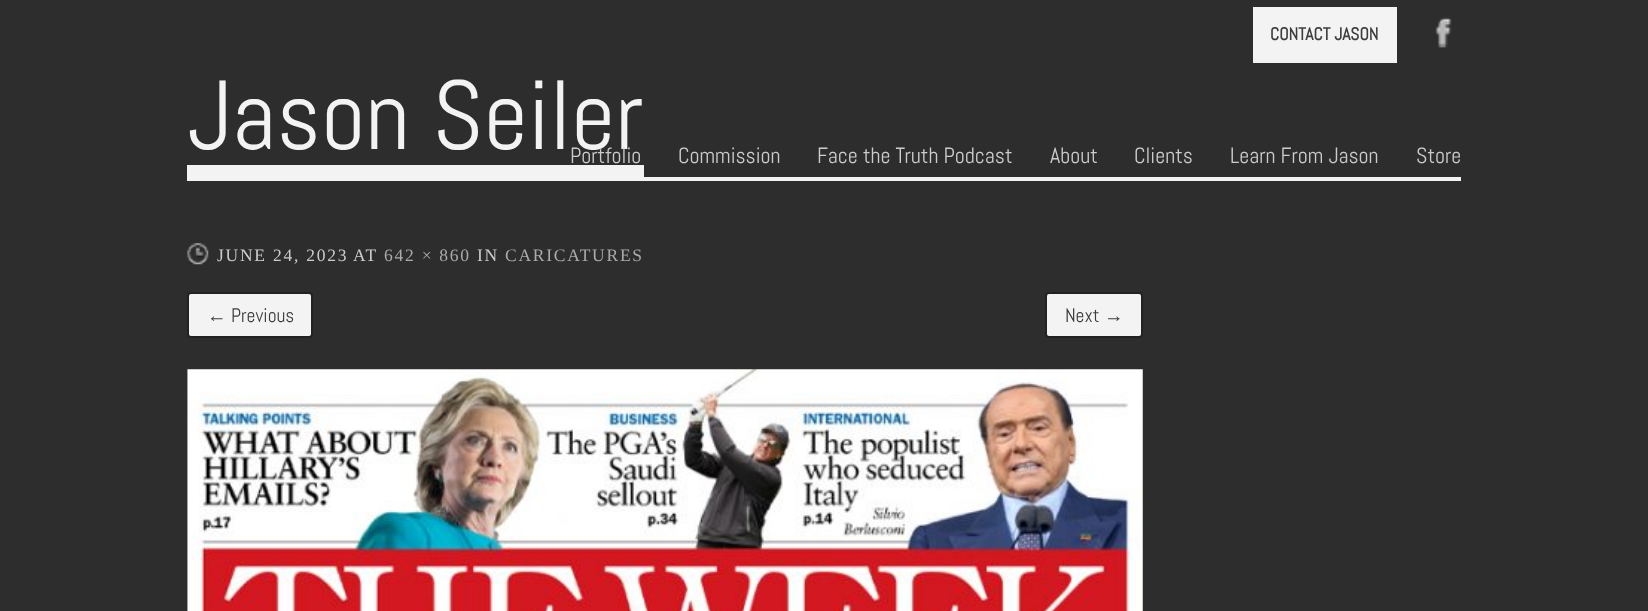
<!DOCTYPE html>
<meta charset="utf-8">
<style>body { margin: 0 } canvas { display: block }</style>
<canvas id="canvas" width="1648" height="611"></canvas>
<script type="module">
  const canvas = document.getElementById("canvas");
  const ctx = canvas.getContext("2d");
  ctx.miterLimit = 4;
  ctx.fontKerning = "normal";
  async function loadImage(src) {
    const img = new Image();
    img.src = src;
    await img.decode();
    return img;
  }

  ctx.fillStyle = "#2d2d2d";
  ctx.fillRect(0, 0, 1648, 611);
  ctx.fillStyle = "#f3f3f3";
  ctx.fillRect(1253, 7, 144, 56);
  ctx.font = "bold 17.5px Abel";
  ctx.fillStyle = "#3d3d3d";
  ctx.fillText("CONTACT JASON", 1270, 40);
  ctx.drawImage(await loadImage("img1.png"), 1435, 17, 17, 31);
  ctx.fillStyle = "#f3f3f3";
  ctx.fillRect(187, 177, 1274, 4);
  ctx.fillRect(187, 165, 457, 12);
  ctx.font = "98px Abel";
  ctx.fillText("Jason Seiler", 187, 149);
  ctx.font = "22px Abel";
  ctx.fillStyle = "#cccccc";
  ctx.fillText("Portfolio", 570, 163);
  ctx.fillText("Commission", 678, 163);
  ctx.fillText("Face the Truth Podcast", 817, 163);
  ctx.fillText("About", 1050, 163);
  ctx.fillText("Clients", 1134, 163);
  ctx.fillText("Learn From Jason", 1230, 163);
  ctx.fillText("Store", 1416, 163);
  ctx.drawImage(await loadImage("img2.png"), 187, 243, 22, 22);
  ctx.letterSpacing = "1.75px";
  ctx.font = "17.5px Liberation Serif";
  ctx.fillText("JUNE 24, 2023", 217, 261);
  ctx.fillText("AT", 353, 261);
  ctx.fillStyle = "#aaaaaa";
  ctx.fillText("642 × 860", 384, 261);
  ctx.fillStyle = "#cccccc";
  ctx.fillText("IN", 477, 261);
  ctx.fillStyle = "#aaaaaa";
  ctx.fillText("CARICATURES", 505, 261);
  ctx.fillStyle = "#f3f3f3";
  ctx.beginPath();
  ctx.roundRect(188, 293, 124, 44, 3);
  ctx.fill();
  ctx.strokeStyle = "#222222";
  ctx.lineWidth = 2;
  ctx.stroke();
  ctx.letterSpacing = "0px";
  ctx.font = "19.5px Liberation Serif";
  ctx.fillStyle = "#3d3d3d";
  ctx.fillText("←", 207, 322);
  ctx.font = "19.5px Abel";
  ctx.fillText("Previous", 231, 322);
  ctx.fillStyle = "#f3f3f3";
  ctx.beginPath();
  ctx.roundRect(1046, 293, 96, 44, 3);
  ctx.fill();
  ctx.stroke();
  ctx.fillStyle = "#3d3d3d";
  ctx.fillText("Next", 1065, 322);
  ctx.font = "19.5px Liberation Serif";
  ctx.fillText("→", 1104, 322);
  ctx.drawImage(await loadImage("img3.png"), 187, 369, 956, 242);
</script>
